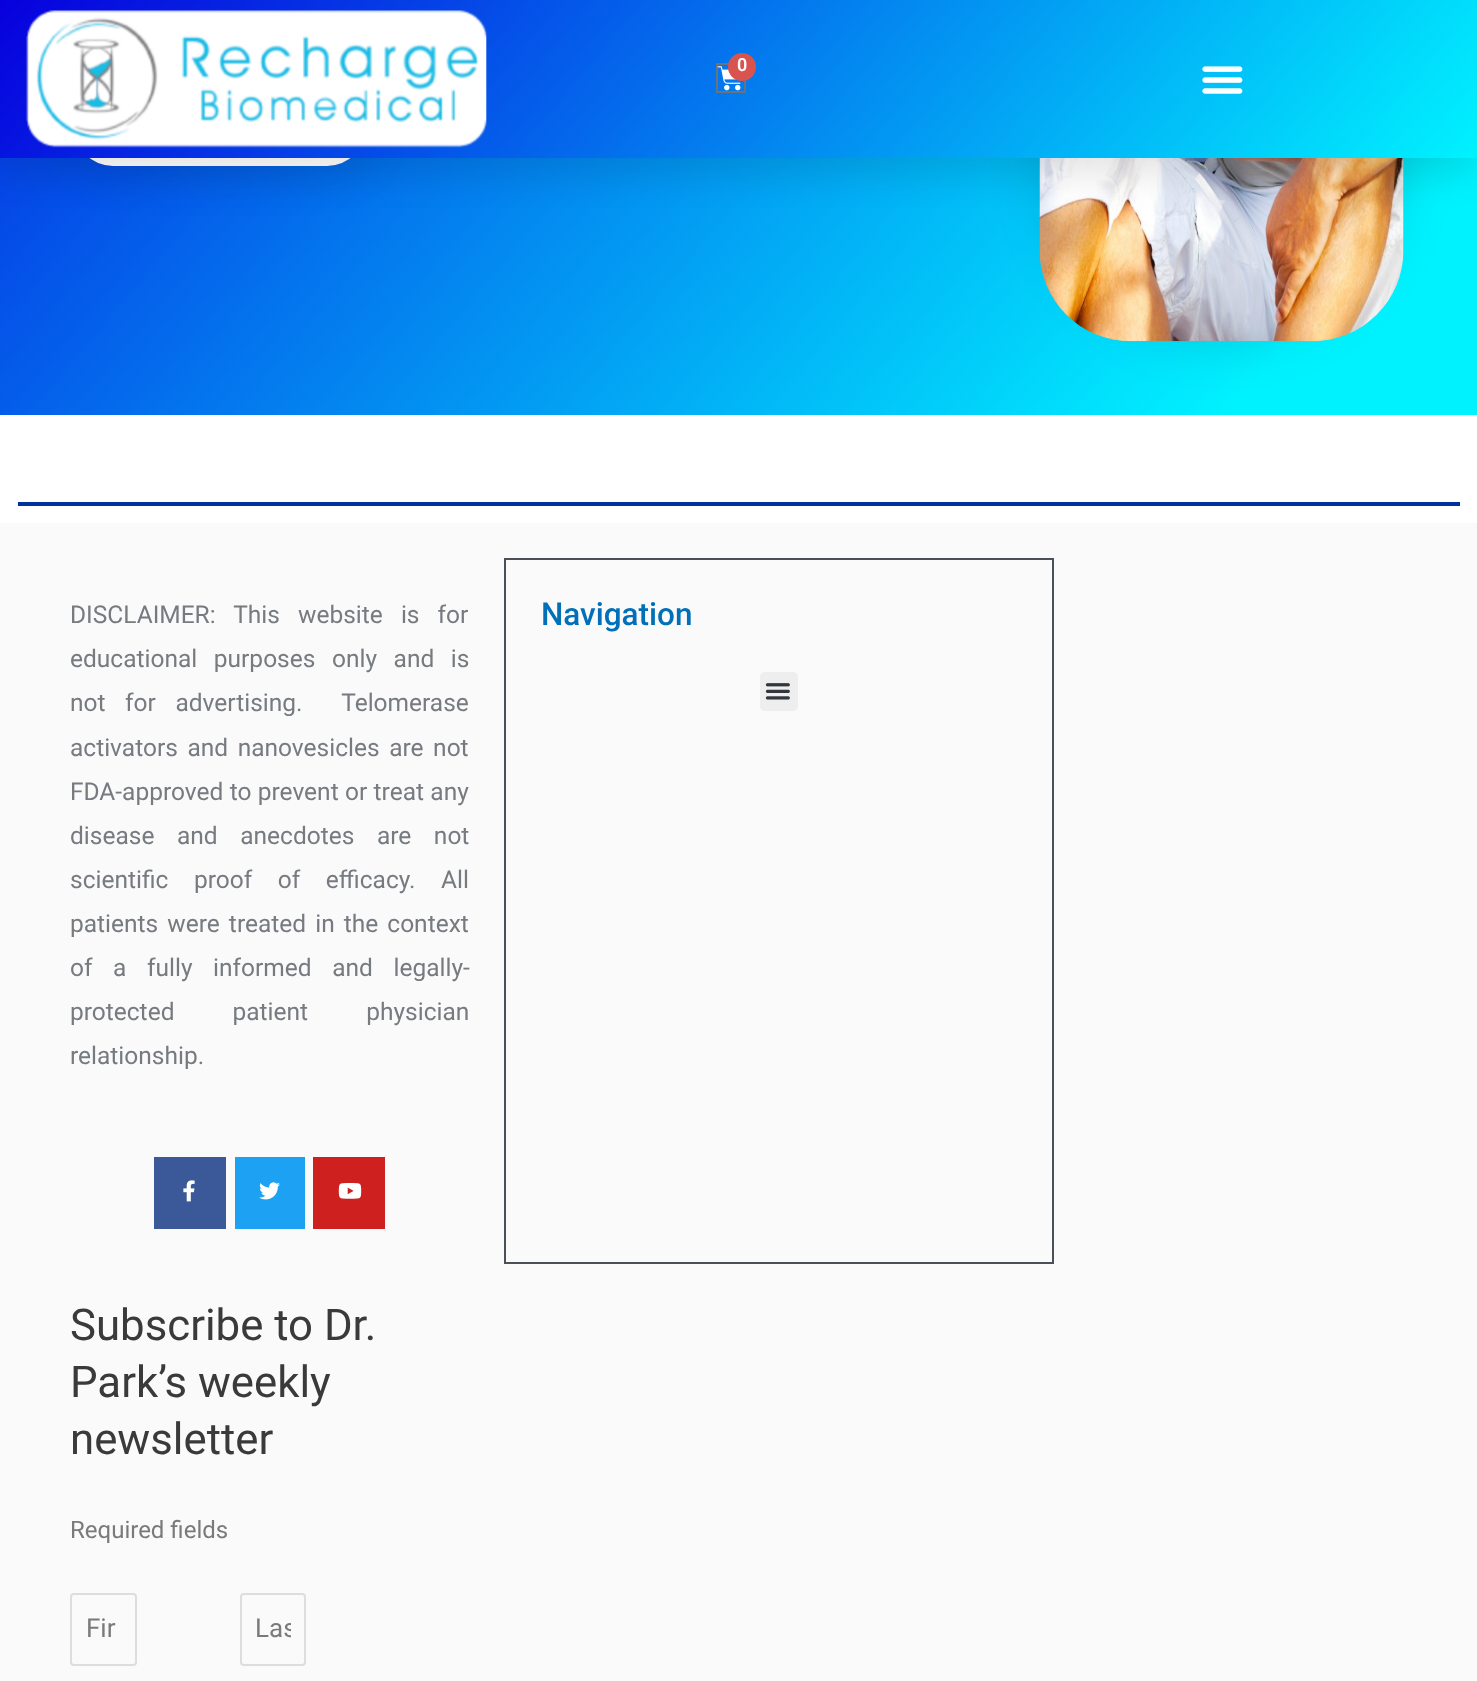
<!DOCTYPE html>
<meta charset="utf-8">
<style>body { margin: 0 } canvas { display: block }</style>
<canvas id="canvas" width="1477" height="1681"></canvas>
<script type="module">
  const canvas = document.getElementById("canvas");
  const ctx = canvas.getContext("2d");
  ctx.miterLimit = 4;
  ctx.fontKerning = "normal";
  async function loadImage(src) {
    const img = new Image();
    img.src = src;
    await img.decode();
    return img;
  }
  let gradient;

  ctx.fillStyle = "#ffffff";
  ctx.fillRect(0, 0, 1477, 1681);
  gradient = ctx.createLinearGradient(78, -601, 1399, 508);
  gradient.addColorStop(0, "#0700dd");
  gradient.addColorStop(0.89, "#00f2ff");
  ctx.fillStyle = gradient;
  ctx.fillRect(0, 158, 1477, 257);
  ctx.fillStyle = "rgba(0, 0, 0, 0.1)";
  ctx.filter = "blur(26px)";
  ctx.beginPath();
  ctx.roundRect(74, 88, 292, 78, 39);
  ctx.fill();
  ctx.filter = "none";
  ctx.fillStyle = "#ffffff";
  ctx.beginPath();
  ctx.roundRect(74, 88, 292, 78, 39);
  ctx.fill();
  ctx.fillStyle = "rgba(0, 0, 0, 0.12)";
  ctx.filter = "blur(26px)";
  ctx.beginPath();
  ctx.roundRect(1040, -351, 364, 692, 273);
  ctx.fill();
  ctx.filter = "none";
  ctx.drawImage(await loadImage("img1.png"), 1039, 158, 365, 184);
  ctx.fillStyle = "rgba(0, 0, 0, 0.1)";
  ctx.filter = "blur(17.5px)";
  ctx.beginPath();
  ctx.rect(0, 18, 1477, 157);
  ctx.fill();
  ctx.filter = "none";
  gradient = ctx.createLinearGradient(266, -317, 1211, 475);
  gradient.addColorStop(0, "#0700dd");
  gradient.addColorStop(1, "#00f2ff");
  ctx.fillStyle = gradient;
  ctx.fillRect(0, 0, 1477, 158);
  ctx.drawImage(await loadImage("img2.png"), 26, 10, 461, 138);
  ctx.strokeStyle = "#69727d";
  ctx.lineWidth = 2;
  ctx.strokeRect(717, 64, 28, 28);
  ctx.drawImage(await loadImage("img3.png"), 717, 66, 24, 25);
  ctx.fillStyle = "#d9534f";
  ctx.beginPath();
  ctx.arc(742, 67, 14, 0, Math.PI * 2);
  ctx.fill();
  ctx.font = "600 18px Roboto";
  ctx.fillStyle = "#ffffff";
  ctx.fillText("0", 737, 71);
  ctx.drawImage(await loadImage("img4.png"), 1202, 66, 41, 28);
  ctx.fillStyle = "#003399";
  ctx.fillRect(18, 502, 1442, 4);
  ctx.fillStyle = "#fafafa";
  ctx.fillRect(0, 523, 1477, 1158);
  ctx.wordSpacing = "12px";
  ctx.font = "24.5px Roboto";
  ctx.fillStyle = "#777b80";
  ctx.fillText("DISCLAIMER: This website is for", 70, 623);
  ctx.wordSpacing = "10.5px";
  ctx.fillText("educational purposes only and is", 70, 667);
  ctx.wordSpacing = "13.5px";
  ctx.fillText("not for advertising.  Telomerase", 70, 711);
  ctx.wordSpacing = "3.5px";
  ctx.fillText("activators and nanovesicles are not", 70, 756);
  ctx.wordSpacing = "0.25px";
  ctx.fillText("FDA-approved to prevent or treat any", 70, 800);
  ctx.wordSpacing = "16.5px";
  ctx.fillText("disease and anecdotes are not", 70, 844);
  ctx.wordSpacing = "19.5px";
  ctx.fillText("scientific proof of efficacy. All", 70, 888);
  ctx.wordSpacing = "3px";
  ctx.fillText("patients were treated in the context", 70, 932);
  ctx.wordSpacing = "14.5px";
  ctx.fillText("of a fully informed and legally-", 70, 976);
  ctx.wordSpacing = "52px";
  ctx.fillText("protected patient physician", 70, 1020);
  ctx.wordSpacing = "0px";
  ctx.fillText("relationship.", 70, 1064);
  ctx.fillStyle = "#3b5998";
  ctx.fillRect(154, 1157, 72, 72);
  ctx.drawImage(await loadImage("img5.png"), 183, 1180, 12, 22);
  ctx.fillStyle = "#1da1f2";
  ctx.fillRect(235, 1157, 70, 72);
  ctx.drawImage(await loadImage("img6.png"), 259, 1182, 21, 18);
  ctx.fillStyle = "#cd201f";
  ctx.fillRect(313, 1157, 72, 72);
  ctx.drawImage(await loadImage("img7.png"), 338, 1183, 24, 16);
  ctx.strokeStyle = "#4b4f58";
  ctx.strokeRect(505, 559, 548, 704);
  ctx.font = "500 31.5px Roboto";
  ctx.fillStyle = "#0170b9";
  ctx.fillText("Navigation", 541, 625);
  ctx.fillStyle = "#eeeeee";
  ctx.beginPath();
  ctx.roundRect(760, 672, 38, 39, 5);
  ctx.fill();
  ctx.drawImage(await loadImage("img8.png"), 765, 683, 25, 17);
  ctx.font = "43.75px Roboto";
  ctx.fillStyle = "#3a3a3a";
  ctx.fillText("Subscribe to Dr.", 70, 1340);
  ctx.fillText("Park’s weekly", 70, 1397);
  ctx.fillText("newsletter", 70, 1454);
  ctx.font = "24px Roboto";
  ctx.fillStyle = "#7a7a7a";
  ctx.fillText("Required fields", 70, 1538);
  ctx.beginPath();
  ctx.roundRect(71, 1594, 65, 71, 3);
  ctx.strokeStyle = "#dddddd";
  ctx.stroke();
  ctx.font = "26px Roboto";
  ctx.fillText("Fir", 86, 1637);
  ctx.beginPath();
  ctx.roundRect(241, 1594, 64, 71, 3);
  ctx.stroke();
  ctx.save();
  ctx.beginPath();
  ctx.rect(256, 1614, 35, 31);
  ctx.clip();
  ctx.fillText("Las", 255, 1637);
  ctx.restore();
</script>
